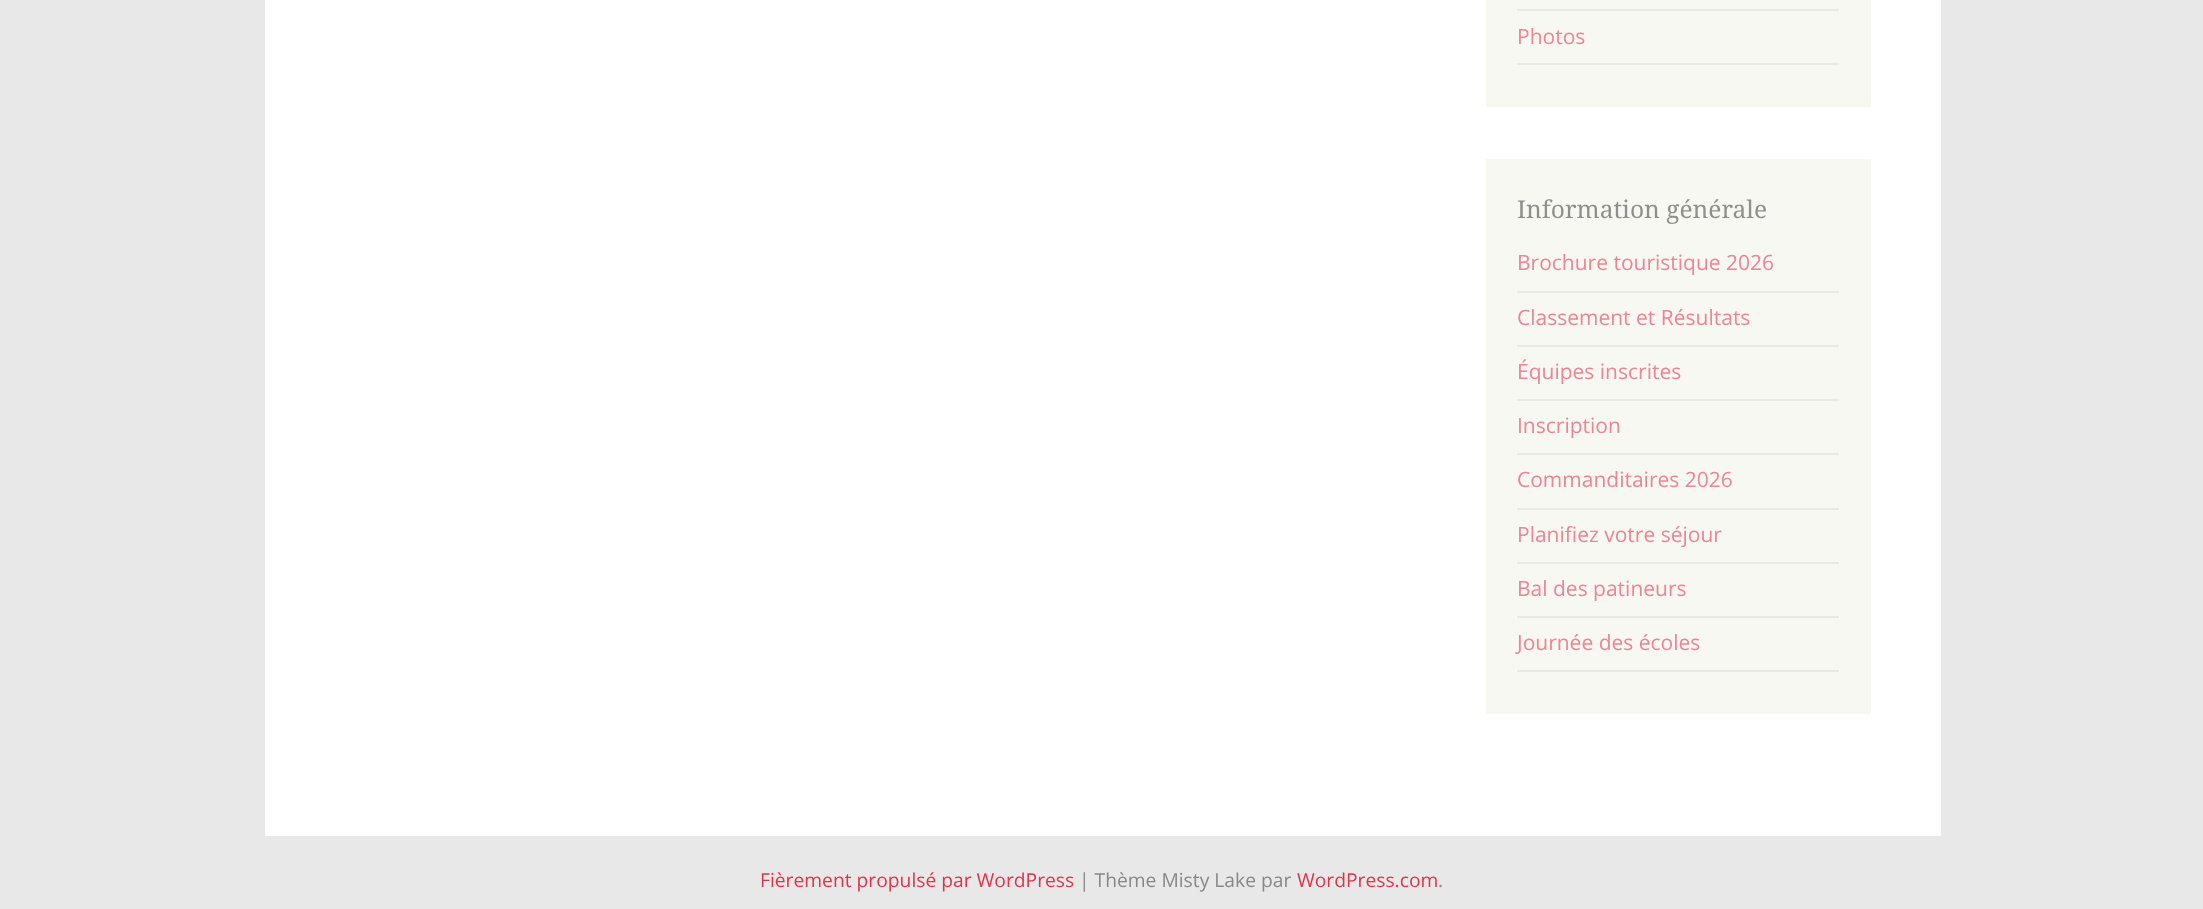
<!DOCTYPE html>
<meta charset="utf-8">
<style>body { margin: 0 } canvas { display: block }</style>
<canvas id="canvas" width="2203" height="909"></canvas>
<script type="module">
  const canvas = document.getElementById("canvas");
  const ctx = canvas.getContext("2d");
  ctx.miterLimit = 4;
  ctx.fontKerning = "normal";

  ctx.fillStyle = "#e8e8e8";
  ctx.fillRect(0, 0, 2203, 909);
  ctx.fillStyle = "#ffffff";
  ctx.fillRect(265, 0, 1676, 836);
  ctx.fillStyle = "#f8f8f3";
  ctx.fillRect(1486, 0, 385, 107);
  ctx.fillStyle = "#e9e9e5";
  ctx.fillRect(1517, 9, 322, 2);
  ctx.fillRect(1517, 63, 322, 2);
  ctx.font = "21px Open Sans";
  ctx.fillStyle = "#ec8594";
  ctx.fillText("Photos", 1517, 44);
  ctx.fillStyle = "#f8f8f3";
  ctx.fillRect(1486, 159, 385, 555);
  ctx.font = "24.5px Droid Serif";
  ctx.fillStyle = "#8f8f8f";
  ctx.fillText("Information générale", 1517, 218);
  ctx.fillStyle = "#e9e9e5";
  ctx.fillRect(1517, 291, 322, 2);
  ctx.font = "21px Open Sans";
  ctx.fillStyle = "#ec8594";
  ctx.fillText("Brochure touristique 2026", 1517, 270);
  ctx.fillStyle = "#e9e9e5";
  ctx.fillRect(1517, 345, 322, 2);
  ctx.fillStyle = "#ec8594";
  ctx.fillText("Classement et Résultats", 1517, 325);
  ctx.fillStyle = "#e9e9e5";
  ctx.fillRect(1517, 399, 322, 2);
  ctx.fillStyle = "#ec8594";
  ctx.fillText("Équipes inscrites", 1517, 379);
  ctx.fillStyle = "#e9e9e5";
  ctx.fillRect(1517, 453, 322, 2);
  ctx.fillStyle = "#ec8594";
  ctx.fillText("Inscription", 1517, 433);
  ctx.fillStyle = "#e9e9e5";
  ctx.fillRect(1517, 508, 322, 2);
  ctx.fillStyle = "#ec8594";
  ctx.fillText("Commanditaires 2026", 1517, 487);
  ctx.fillStyle = "#e9e9e5";
  ctx.fillRect(1517, 562, 322, 2);
  ctx.fillStyle = "#ec8594";
  ctx.fillText("Planifiez votre séjour", 1517, 542);
  ctx.fillStyle = "#e9e9e5";
  ctx.fillRect(1517, 616, 322, 2);
  ctx.fillStyle = "#ec8594";
  ctx.fillText("Bal des patineurs", 1517, 596);
  ctx.fillStyle = "#e9e9e5";
  ctx.fillRect(1517, 670, 322, 2);
  ctx.fillStyle = "#ec8594";
  ctx.fillText("Journée des écoles", 1517, 650);
  ctx.font = "19.25px Open Sans";
  ctx.fillStyle = "#e0344c";
  ctx.fillText("Fièrement propulsé par WordPress", 760, 887);
  ctx.fillStyle = "#888888";
  ctx.fillText("| Thème Misty Lake par", 1079, 887);
  ctx.fillStyle = "#e0344c";
  ctx.fillText("WordPress.com", 1297, 887);
  ctx.fillStyle = "#888888";
  ctx.fillText(".", 1438, 887);
</script>
